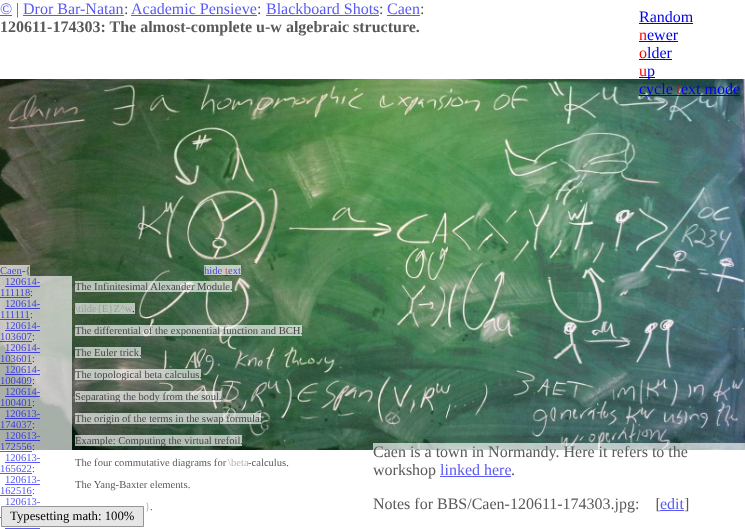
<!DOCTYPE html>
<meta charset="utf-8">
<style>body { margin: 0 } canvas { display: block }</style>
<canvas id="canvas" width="745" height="529"></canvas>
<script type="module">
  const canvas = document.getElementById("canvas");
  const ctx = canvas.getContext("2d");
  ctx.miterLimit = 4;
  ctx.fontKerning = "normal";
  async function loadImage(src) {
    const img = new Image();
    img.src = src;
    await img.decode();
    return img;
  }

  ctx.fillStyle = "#ffffff";
  ctx.fillRect(0, 0, 745, 529);
  ctx.font = "16px Liberation Serif";
  ctx.fillStyle = "#5959f4";
  ctx.fillText("©", 0, 14);
  ctx.fillRect(0, 15, 12, 1);
  ctx.fillStyle = "#595959";
  ctx.fillText("|", 16, 14);
  ctx.fillStyle = "#5959f4";
  ctx.fillText("Dror Bar-Natan", 23, 14);
  ctx.fillRect(23, 15, 101, 1);
  ctx.fillStyle = "#595959";
  ctx.fillText(":", 124, 14);
  ctx.fillStyle = "#5959f4";
  ctx.fillText("Academic Pensieve", 131, 14);
  ctx.fillRect(131, 15, 126, 1);
  ctx.fillStyle = "#595959";
  ctx.fillText(":", 257, 14);
  ctx.fillStyle = "#5959f4";
  ctx.fillText("Blackboard Shots", 266, 14);
  ctx.fillRect(266, 15, 113, 1);
  ctx.fillStyle = "#595959";
  ctx.fillText(":", 379, 14);
  ctx.fillStyle = "#5959f4";
  ctx.fillText("Caen", 387, 14);
  ctx.fillRect(387, 15, 33, 1);
  ctx.fillStyle = "#595959";
  ctx.fillText(":", 420, 14);
  ctx.font = "bold 16px Liberation Serif";
  ctx.fillText("120611-174303: The almost-complete u-w algebraic structure.", 0, 32);
  ctx.font = "16px Liberation Serif";
  ctx.fillStyle = "#0000ee";
  ctx.fillText("Random", 639, 22);
  ctx.fillRect(639, 23, 54, 1);
  ctx.fillStyle = "#ff0000";
  ctx.fillText("n", 639, 40);
  ctx.fillStyle = "#0000ee";
  ctx.fillText("ewer", 647, 40);
  ctx.fillRect(639, 41, 39, 1);
  ctx.fillStyle = "#ff0000";
  ctx.fillText("o", 639, 58);
  ctx.fillStyle = "#0000ee";
  ctx.fillRect(639, 59, 33, 1);
  ctx.fillText("lder", 647, 58);
  ctx.fillStyle = "#ff0000";
  ctx.fillText("u", 639, 76);
  ctx.fillStyle = "#0000ee";
  ctx.fillRect(639, 77, 16, 1);
  ctx.drawImage(await loadImage("img1.png"), 0, 79, 745, 371);
  ctx.fillText("p", 647, 76);
  ctx.fillRect(639, 95, 101, 1);
  ctx.fillText("cycle", 639, 94);
  ctx.fillStyle = "#ff0000";
  ctx.fillText("t", 676, 94);
  ctx.fillStyle = "#0000ee";
  ctx.fillText("ext mode", 681, 94);
  ctx.fillStyle = "rgba(255, 255, 255, 0.65)";
  ctx.fillRect(0, 265, 22, 11);
  ctx.font = "10.6px Liberation Serif";
  ctx.fillStyle = "#4445dd";
  ctx.fillText("Caen", 0, 274);
  ctx.fillStyle = "rgba(255, 255, 255, 0.65)";
  ctx.fillRect(22, 265, 8, 11);
  ctx.fillStyle = "rgba(0, 0, 238, 0.65)";
  ctx.fillRect(0, 275, 22, 1);
  ctx.fillStyle = "#434441";
  ctx.fillText("-{", 22, 274);
  ctx.fillStyle = "rgba(255, 255, 255, 0.65)";
  ctx.fillRect(204, 265, 21, 11);
  ctx.fillStyle = "#4445dd";
  ctx.fillText("hide", 204, 274);
  ctx.fillStyle = "rgba(255, 255, 255, 0.65)";
  ctx.fillRect(225, 265, 3, 11);
  ctx.fillStyle = "#e94843";
  ctx.fillText("t", 225, 274);
  ctx.fillStyle = "rgba(255, 255, 255, 0.65)";
  ctx.fillRect(228, 265, 13, 11);
  ctx.fillStyle = "rgba(0, 0, 238, 0.65)";
  ctx.fillRect(204, 275, 21, 1);
  ctx.fillStyle = "#1e28b7";
  ctx.fillRect(225, 275, 3, 1);
  ctx.fillStyle = "rgba(0, 0, 238, 0.65)";
  ctx.fillRect(228, 275, 13, 1);
  ctx.fillStyle = "#4445dd";
  ctx.fillText("ext", 228, 274);
  ctx.fillStyle = "rgba(255, 255, 255, 0.65)";
  ctx.fillRect(0, 276, 72, 22);
  ctx.fillStyle = "#4445dd";
  ctx.fillText("120614-", 5, 285);
  ctx.fillStyle = "rgba(0, 0, 238, 0.65)";
  ctx.fillRect(5, 286, 35, 1);
  ctx.fillStyle = "#4445dd";
  ctx.fillText("111118", 0, 296);
  ctx.fillStyle = "rgba(0, 0, 238, 0.65)";
  ctx.fillRect(0, 297, 30, 1);
  ctx.fillStyle = "#434441";
  ctx.fillText(":", 30, 296);
  ctx.fillStyle = "rgba(255, 255, 255, 0.65)";
  ctx.fillRect(75, 281, 157, 11);
  ctx.fillStyle = "#434441";
  ctx.fillText("The Infinitesimal Alexander Module.", 75, 290);
  ctx.fillStyle = "rgba(255, 255, 255, 0.65)";
  ctx.fillRect(0, 298, 72, 22);
  ctx.fillStyle = "#4445dd";
  ctx.fillText("120614-", 5, 307);
  ctx.fillStyle = "rgba(0, 0, 238, 0.65)";
  ctx.fillRect(5, 308, 35, 1);
  ctx.fillStyle = "#4445dd";
  ctx.fillText("111111", 0, 318);
  ctx.fillStyle = "rgba(0, 0, 238, 0.65)";
  ctx.fillRect(0, 319, 30, 1);
  ctx.fillStyle = "#434441";
  ctx.fillText(":", 30, 318);
  ctx.fillStyle = "rgba(255, 255, 255, 0.65)";
  ctx.fillRect(75, 303, 57, 11);
  ctx.fillStyle = "#999d99";
  ctx.fillText("\\tilde{E}Z^w", 75, 312);
  ctx.fillStyle = "rgba(255, 255, 255, 0.65)";
  ctx.fillRect(132, 303, 3, 11);
  ctx.fillStyle = "#162016";
  ctx.fillText(".", 132, 312);
  ctx.fillStyle = "rgba(255, 255, 255, 0.65)";
  ctx.fillRect(0, 320, 72, 22);
  ctx.fillStyle = "#4445dd";
  ctx.fillText("120614-", 5, 329);
  ctx.fillStyle = "rgba(0, 0, 238, 0.65)";
  ctx.fillRect(5, 330, 35, 1);
  ctx.fillStyle = "#4445dd";
  ctx.fillText("103607", 0, 340);
  ctx.fillStyle = "rgba(0, 0, 238, 0.65)";
  ctx.fillRect(0, 341, 32, 1);
  ctx.fillStyle = "#434441";
  ctx.fillText(":", 32, 340);
  ctx.fillStyle = "rgba(255, 255, 255, 0.65)";
  ctx.fillRect(75, 325, 227, 11);
  ctx.fillStyle = "#434441";
  ctx.fillText("The differential of the exponential function and BCH.", 75, 334);
  ctx.fillStyle = "rgba(255, 255, 255, 0.65)";
  ctx.fillRect(0, 342, 72, 22);
  ctx.fillStyle = "#4445dd";
  ctx.fillText("120614-", 5, 351);
  ctx.fillStyle = "rgba(0, 0, 238, 0.65)";
  ctx.fillRect(5, 352, 35, 1);
  ctx.fillStyle = "#4445dd";
  ctx.fillText("103601", 0, 362);
  ctx.fillStyle = "rgba(0, 0, 238, 0.65)";
  ctx.fillRect(0, 363, 32, 1);
  ctx.fillStyle = "#434441";
  ctx.fillText(":", 32, 362);
  ctx.fillStyle = "rgba(255, 255, 255, 0.65)";
  ctx.fillRect(75, 347, 66, 11);
  ctx.fillStyle = "#434441";
  ctx.fillText("The Euler trick.", 75, 356);
  ctx.fillStyle = "rgba(255, 255, 255, 0.65)";
  ctx.fillRect(0, 364, 72, 22);
  ctx.fillStyle = "#4445dd";
  ctx.fillText("120614-", 5, 373);
  ctx.fillStyle = "rgba(0, 0, 238, 0.65)";
  ctx.fillRect(5, 374, 35, 1);
  ctx.fillStyle = "#3d3fd8";
  ctx.fillText("100409", 0, 384);
  ctx.fillStyle = "rgba(0, 0, 238, 0.65)";
  ctx.fillRect(0, 385, 32, 1);
  ctx.fillStyle = "#434441";
  ctx.fillText(":", 32, 384);
  ctx.fillStyle = "rgba(255, 255, 255, 0.65)";
  ctx.fillRect(75, 369, 126, 11);
  ctx.fillStyle = "#434441";
  ctx.fillText("The topological beta calculus.", 75, 378);
  ctx.fillStyle = "rgba(255, 255, 255, 0.65)";
  ctx.fillRect(0, 386, 72, 22);
  ctx.fillStyle = "#3d3fd8";
  ctx.fillText("120614-", 5, 395);
  ctx.fillStyle = "rgba(0, 0, 238, 0.65)";
  ctx.fillRect(5, 396, 35, 1);
  ctx.fillStyle = "#3d3fd8";
  ctx.fillText("100401", 0, 406);
  ctx.fillStyle = "rgba(0, 0, 238, 0.65)";
  ctx.fillRect(0, 407, 32, 1);
  ctx.fillStyle = "#3b3e3c";
  ctx.fillText(":", 32, 406);
  ctx.fillStyle = "rgba(255, 255, 255, 0.65)";
  ctx.fillRect(75, 391, 146, 11);
  ctx.fillStyle = "#434441";
  ctx.fillText("Separating the body from the soul.", 75, 400);
  ctx.fillStyle = "rgba(255, 255, 255, 0.65)";
  ctx.fillRect(0, 408, 72, 22);
  ctx.fillStyle = "#3d3fd8";
  ctx.fillText("120613-", 5, 417);
  ctx.fillStyle = "rgba(0, 0, 238, 0.65)";
  ctx.fillRect(5, 418, 35, 1);
  ctx.fillStyle = "#3d3fd8";
  ctx.fillText("174037", 0, 428);
  ctx.fillStyle = "rgba(0, 0, 238, 0.65)";
  ctx.fillRect(0, 429, 32, 1);
  ctx.fillStyle = "#3b3e3c";
  ctx.fillText(":", 32, 428);
  ctx.fillStyle = "rgba(255, 255, 255, 0.65)";
  ctx.fillRect(75, 413, 186, 11);
  ctx.fillStyle = "#434441";
  ctx.fillText("The origin of the terms in the swap formula.", 75, 422);
  ctx.fillStyle = "rgba(255, 255, 255, 0.65)";
  ctx.fillRect(0, 430, 72, 20);
  ctx.fillStyle = "#3d3fd8";
  ctx.fillText("120613-", 5, 439);
  ctx.fillStyle = "rgba(0, 0, 238, 0.65)";
  ctx.fillRect(5, 440, 35, 1);
  ctx.fillStyle = "#3d3fd8";
  ctx.fillText("172556", 0, 450);
  ctx.fillStyle = "#5959f4";
  ctx.fillRect(0, 451, 32, 1);
  ctx.fillStyle = "#434441";
  ctx.fillText(":", 32, 450);
  ctx.fillStyle = "rgba(255, 255, 255, 0.65)";
  ctx.fillRect(75, 435, 167, 11);
  ctx.fillStyle = "#434441";
  ctx.fillText("Example: Computing the virtual trefoil.", 75, 444);
  ctx.fillStyle = "#5959f4";
  ctx.fillText("120613-", 5, 461);
  ctx.fillRect(5, 462, 35, 1);
  ctx.fillText("165622", 0, 472);
  ctx.fillRect(0, 473, 32, 1);
  ctx.fillStyle = "#595959";
  ctx.fillText(":", 32, 472);
  ctx.fillText("The four commutative diagrams for", 75, 466);
  ctx.fillStyle = "#b2b2b2";
  ctx.fillText("\\beta", 228, 466);
  ctx.fillStyle = "#595959";
  ctx.fillText("-calculus.", 248, 466);
  ctx.fillStyle = "#5959f4";
  ctx.fillText("120613-", 5, 483);
  ctx.fillRect(5, 484, 35, 1);
  ctx.fillText("162516", 0, 494);
  ctx.fillRect(0, 495, 32, 1);
  ctx.fillStyle = "#595959";
  ctx.fillText(":", 32, 494);
  ctx.fillText("The Yang-Baxter elements.", 75, 488);
  ctx.fillStyle = "#5959f4";
  ctx.fillText("120613-", 5, 505);
  ctx.fillRect(0, 517, 1, 1);
  ctx.fillStyle = "#b2b2b2";
  ctx.fillText("}", 145, 510);
  ctx.fillStyle = "#595959";
  ctx.fillText(".", 150, 510);
  ctx.fillStyle = "#5959f4";
  ctx.fillRect(5, 528, 35, 1);
  ctx.fillStyle = "rgba(255, 255, 255, 0.65)";
  ctx.fillRect(373, 443, 372, 7);
  ctx.font = "16px Liberation Serif";
  ctx.fillStyle = "#595959";
  ctx.fillText("Caen is a town in Normandy. Here it refers to the", 373, 457);
  ctx.fillText("workshop", 373, 475);
  ctx.fillStyle = "#5959f4";
  ctx.fillText("linked here", 440, 475);
  ctx.fillRect(440, 476, 71, 1);
  ctx.fillStyle = "#595959";
  ctx.fillText(".", 511, 475);
  ctx.fillText("Notes for BBS/Caen-120611-174303.jpg:    [", 373, 509);
  ctx.fillStyle = "#5959f4";
  ctx.fillText("edit", 660, 509);
  ctx.fillRect(660, 510, 24, 1);
  ctx.fillStyle = "#595959";
  ctx.fillText("]", 684, 509);
  ctx.fillStyle = "#e6e6e6";
  ctx.beginPath();
  ctx.rect(1.5, 506.5, 142, 20);
  ctx.fill();
  ctx.strokeStyle = "#959595";
  ctx.stroke();
  ctx.font = "12.75px Liberation Serif";
  ctx.fillStyle = "#000000";
  ctx.fillText("Typesetting math: 100%", 10, 520);
</script>
